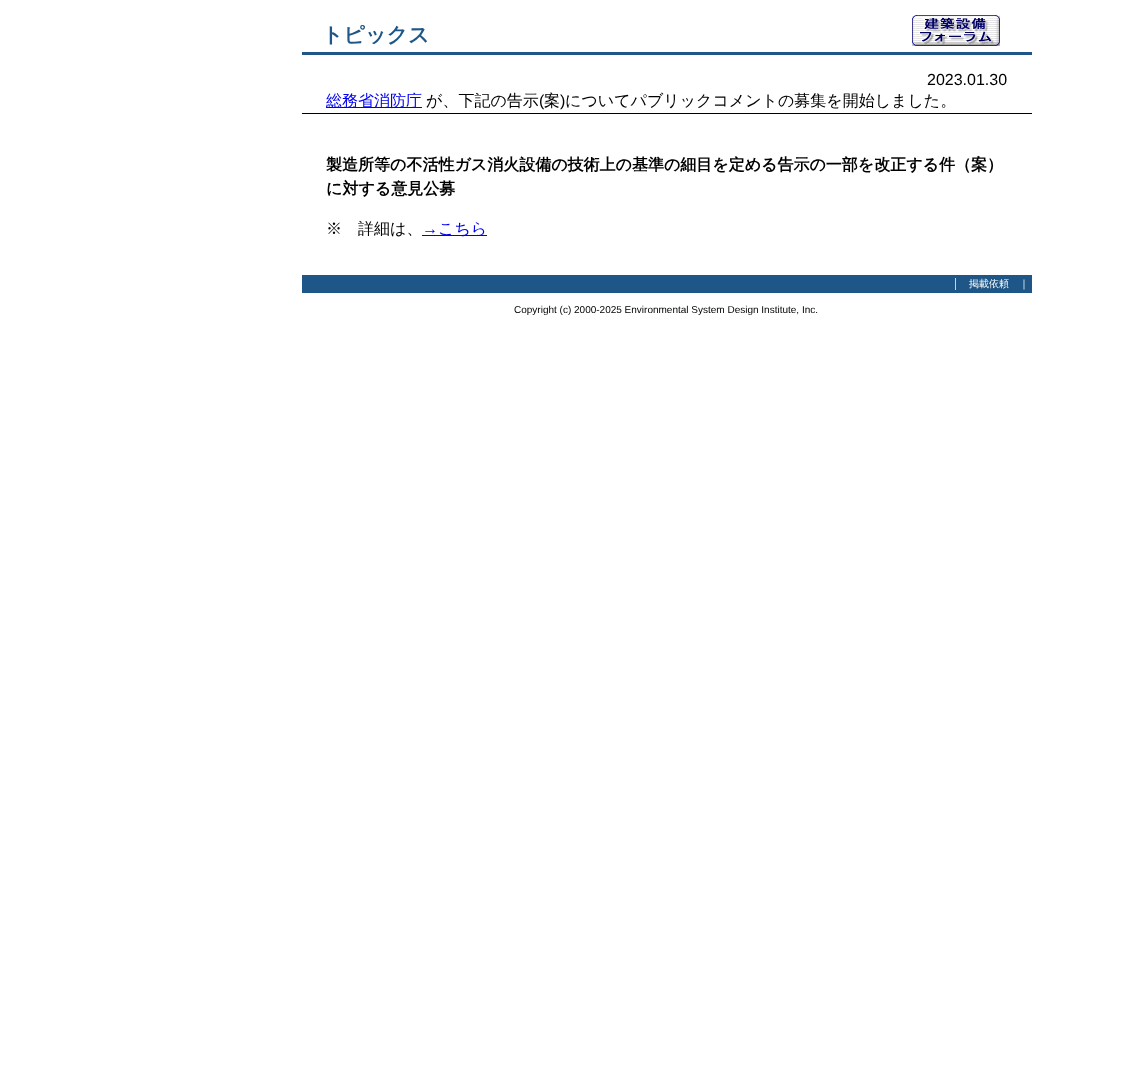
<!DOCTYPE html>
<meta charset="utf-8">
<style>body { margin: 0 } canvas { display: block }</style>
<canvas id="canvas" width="1143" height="1072"></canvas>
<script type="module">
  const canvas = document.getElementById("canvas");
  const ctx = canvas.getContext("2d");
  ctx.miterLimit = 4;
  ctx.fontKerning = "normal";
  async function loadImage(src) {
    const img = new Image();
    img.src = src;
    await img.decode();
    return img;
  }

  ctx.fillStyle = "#ffffff";
  ctx.fillRect(0, 0, 1143, 1072);
  ctx.font = "bold 21px WenQuanYi Zen Hei";
  ctx.fillStyle = "#1e5787";
  ctx.fillText("トピックス", 322, 42);
  ctx.drawImage(await loadImage("img1.png"), 912, 15, 88, 31);
  ctx.fillRect(302, 52, 730, 3);
  ctx.font = "16px Liberation Sans";
  ctx.fillStyle = "#000000";
  ctx.fillText("2023.01.30", 927, 85);
  ctx.fillStyle = "#0000ee";
  ctx.fillRect(326, 107, 96, 1);
  ctx.font = "500 16px WenQuanYi Zen Hei";
  ctx.fillText("総務省消防庁", 326, 106);
  ctx.fillStyle = "#000000";
  ctx.fillText("が、下記の告示", 426, 106);
  ctx.font = "16px Liberation Sans";
  ctx.fillText("(", 539, 106);
  ctx.font = "500 16px WenQuanYi Zen Hei";
  ctx.fillText("案", 544, 106);
  ctx.font = "16px Liberation Sans";
  ctx.fillText(")", 560, 106);
  ctx.font = "500 16px WenQuanYi Zen Hei";
  ctx.fillText("についてパブリックコメントの募集を開始しました。", 565, 106);
  ctx.fillRect(302, 113, 730, 1);
  ctx.font = "bold 16px WenQuanYi Zen Hei";
  ctx.fillText("製造所等の不活性ガス消火設備の技術上の基準の細目を定める告示の一部を改正する件（案）", 326, 170);
  ctx.fillText("に対する意見公募", 326, 194);
  ctx.font = "500 16px WenQuanYi Zen Hei";
  ctx.fillText("※　詳細は、", 326, 234);
  ctx.font = "16px Liberation Sans";
  ctx.fillStyle = "#0000ee";
  ctx.fillText("→", 422, 234);
  ctx.fillRect(422, 235, 65, 1);
  ctx.font = "500 16px WenQuanYi Zen Hei";
  ctx.fillText("こちら", 438, 234);
  ctx.fillStyle = "#1e5787";
  ctx.fillRect(302, 275, 730, 18);
  ctx.font = "10px Liberation Serif";
  ctx.fillStyle = "#ffffff";
  ctx.fillText("│", 952, 287);
  ctx.font = "500 10px WenQuanYi Zen Hei";
  ctx.fillText("掲載依頼", 969, 287);
  ctx.fillText("｜", 1019, 287);
  ctx.font = "10px Liberation Sans";
  ctx.fillStyle = "#000000";
  ctx.fillText("Copyright (c) 2000-2025 Environmental System Design Institute, Inc.", 514, 313);
</script>
